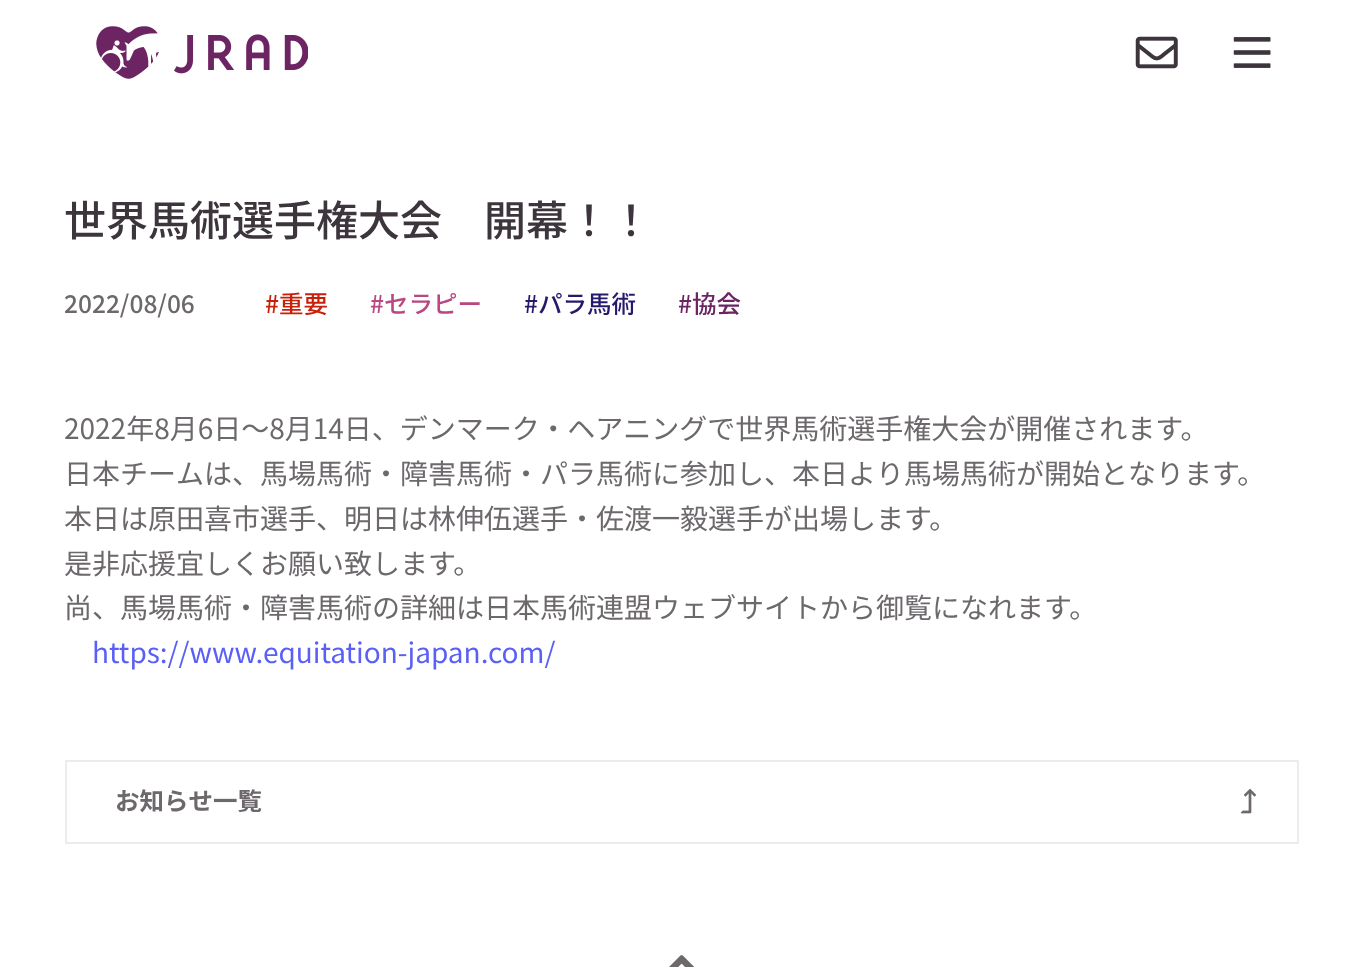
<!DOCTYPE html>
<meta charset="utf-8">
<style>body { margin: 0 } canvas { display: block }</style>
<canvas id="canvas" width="1362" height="967"></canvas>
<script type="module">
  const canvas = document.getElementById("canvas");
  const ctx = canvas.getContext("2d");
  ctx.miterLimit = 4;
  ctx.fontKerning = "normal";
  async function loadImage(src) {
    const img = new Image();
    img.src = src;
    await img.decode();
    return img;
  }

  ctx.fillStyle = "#ffffff";
  ctx.fillRect(0, 0, 1362, 967);
  ctx.drawImage(await loadImage("img1.png"), 96, 26, 212, 53);
  ctx.drawImage(await loadImage("img2.png"), 1135, 36, 43, 33);
  ctx.drawImage(await loadImage("img3.png"), 1233, 37, 38, 31);
  ctx.font = "500 42px Noto Sans JP";
  ctx.fillStyle = "#3c353c";
  ctx.fillText("世界馬術選手権大会　開幕！！", 64, 236);
  ctx.font = "500 24.5px Noto Sans JP";
  ctx.fillStyle = "#6c686c";
  ctx.fillText("2022/08/06", 64, 313);
  ctx.fillStyle = "#c91f09";
  ctx.fillText("#重要", 265, 313);
  ctx.fillStyle = "#b94880";
  ctx.fillText("#セラピー", 370, 313);
  ctx.fillStyle = "#24196b";
  ctx.fillText("#パラ馬術", 524, 313);
  ctx.fillStyle = "#6c2463";
  ctx.fillText("#協会", 678, 313);
  ctx.font = "28px Noto Sans JP";
  ctx.fillStyle = "#6c686c";
  ctx.fillText("2022年8月6日～8月14日、デンマーク・ヘアニングで世界馬術選手権大会が開催されます。", 64, 439);
  ctx.fillText("日本チームは、馬場馬術・障害馬術・パラ馬術に参加し、本日より馬場馬術が開始となります。", 64, 484);
  ctx.fillText("本日は原田喜市選手、明日は林伸伍選手・佐渡一毅選手が出場します。", 64, 529);
  ctx.fillText("是非応援宜しくお願い致します。", 64, 574);
  ctx.fillText("尚、馬場馬術・障害馬術の詳細は日本馬術連盟ウェブサイトから御覧になれます。", 64, 618);
  ctx.fillStyle = "#5a60f5";
  ctx.fillText("https://www.equitation-japan.com/", 92, 663);
  ctx.strokeStyle = "#edebed";
  ctx.lineWidth = 2;
  ctx.strokeRect(66, 761, 1232, 82);
  ctx.font = "bold 24.5px Noto Sans JP";
  ctx.fillStyle = "#6c686c";
  ctx.fillText("お知らせ一覧", 115, 810);
  ctx.drawImage(await loadImage("img4.png"), 1240, 788, 16, 26);
  ctx.drawImage(await loadImage("img5.png"), 669, 955, 26, 12);
</script>
